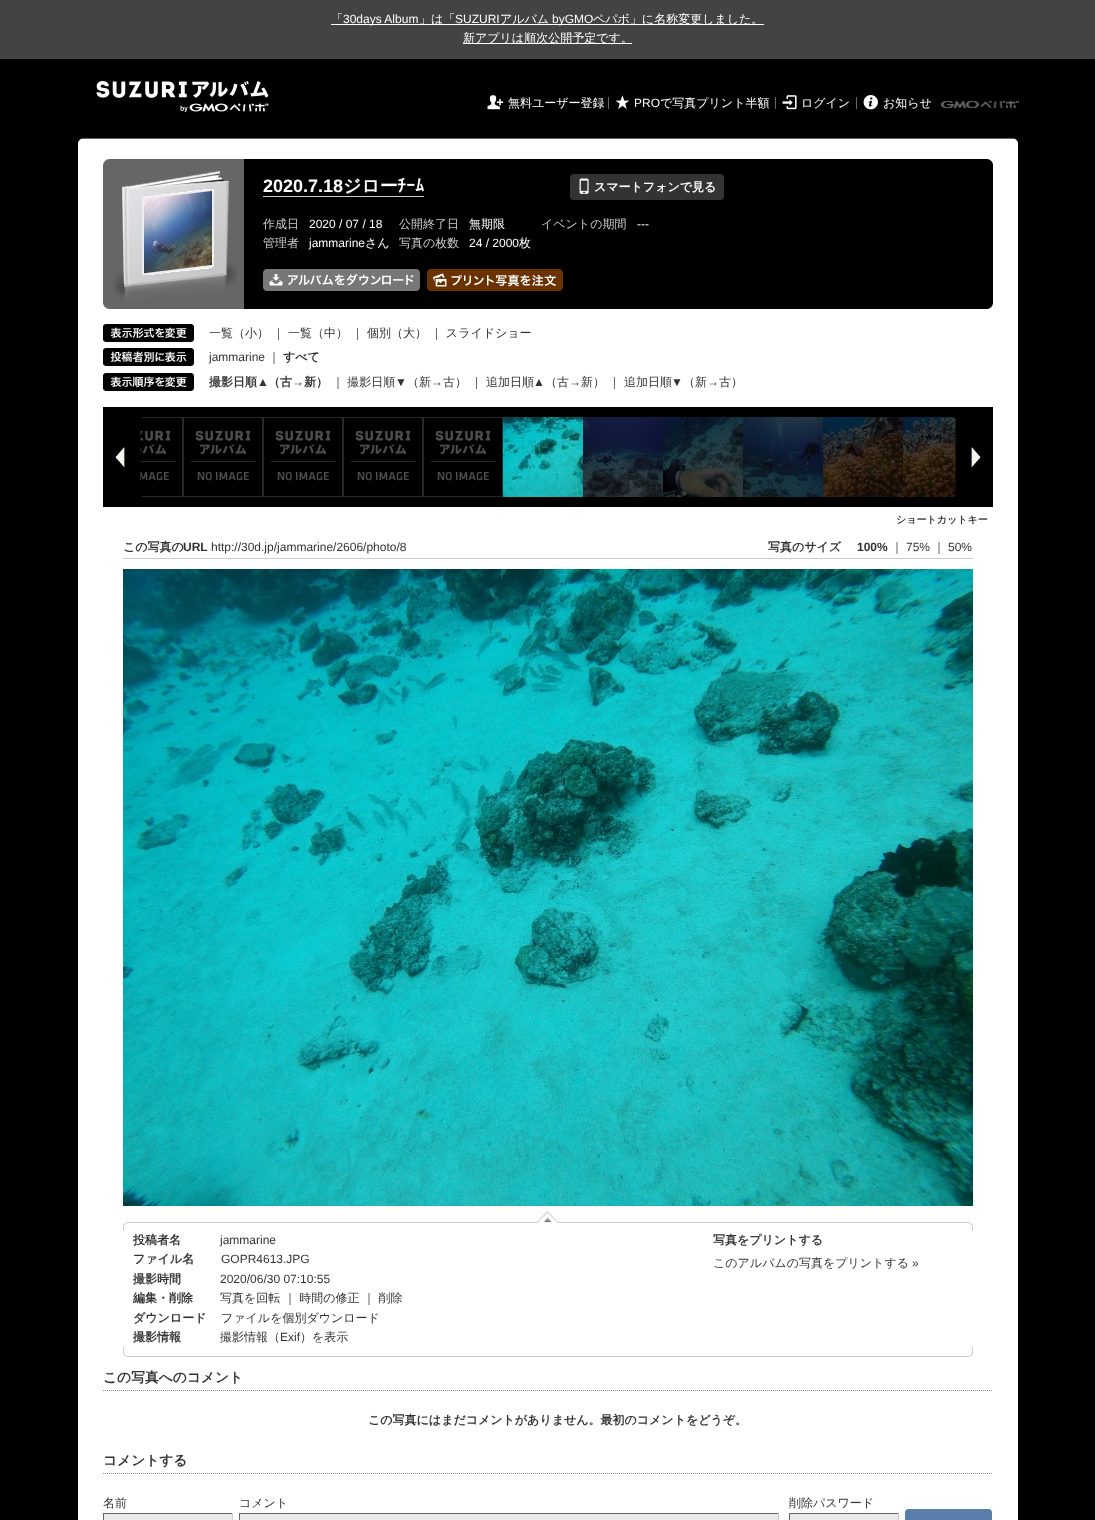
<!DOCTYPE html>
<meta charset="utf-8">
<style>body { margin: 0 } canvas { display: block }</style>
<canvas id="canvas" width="1095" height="1520"></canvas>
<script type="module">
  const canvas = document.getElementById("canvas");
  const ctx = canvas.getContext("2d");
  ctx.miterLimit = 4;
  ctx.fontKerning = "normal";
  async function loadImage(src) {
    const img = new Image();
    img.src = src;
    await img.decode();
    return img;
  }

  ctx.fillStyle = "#434343";
  ctx.fillRect(0, 0, 1095, 1520);
  ctx.font = "500 12px WenQuanYi Zen Hei";
  ctx.fillStyle = "#ffffff";
  ctx.fillText("「", 331, 23);
  ctx.fillRect(331, 24, 433, 1);
  ctx.font = "12px Liberation Sans";
  ctx.fillText("30days Album", 343, 23);
  ctx.font = "500 12px WenQuanYi Zen Hei";
  ctx.fillText("」は「", 419, 23);
  ctx.font = "12px Liberation Sans";
  ctx.fillText("SUZURI", 455, 23);
  ctx.font = "500 12px WenQuanYi Zen Hei";
  ctx.fillText("アルバム", 500, 23);
  ctx.font = "12px Liberation Sans";
  ctx.fillText("byGMO", 552, 23);
  ctx.font = "500 12px WenQuanYi Zen Hei";
  ctx.fillText("ペパボ」に名称変更しました。", 593, 23);
  ctx.fillRect(463, 43, 169, 1);
  ctx.fillText("新アプリは順次公開予定です。", 463, 42);
  ctx.fillStyle = "#000000";
  ctx.fillRect(0, 59, 1095, 1461);
  ctx.drawImage(await loadImage("img1.png"), 96, 81, 173, 31);
  ctx.drawImage(await loadImage("img2.png"), 487, 95, 17, 15);
  ctx.fillStyle = "#ffffff";
  ctx.fillText("無料ユーザー登録", 508, 107);
  ctx.fillStyle = "#666666";
  ctx.fillRect(608, 97, 1, 12);
  ctx.drawImage(await loadImage("img3.png"), 615, 95, 15, 14);
  ctx.font = "12px Liberation Sans";
  ctx.fillStyle = "#ffffff";
  ctx.fillText("PRO", 634, 107);
  ctx.font = "500 12px WenQuanYi Zen Hei";
  ctx.fillText("で写真プリント半額", 660, 107);
  ctx.fillStyle = "#666666";
  ctx.fillRect(775, 97, 1, 12);
  ctx.drawImage(await loadImage("img4.png"), 782, 95, 15, 15);
  ctx.fillStyle = "#ffffff";
  ctx.fillText("ログイン", 801, 107);
  ctx.fillStyle = "#666666";
  ctx.fillRect(856, 97, 1, 12);
  ctx.drawImage(await loadImage("img5.png"), 863, 95, 15, 15);
  ctx.fillStyle = "#ffffff";
  ctx.fillText("お知らせ", 883, 107);
  ctx.drawImage(await loadImage("img6.png"), 941, 100, 78, 9);
  ctx.drawImage(await loadImage("img7.png"), 78, 138, 940, 6);
  ctx.fillRect(78, 144, 940, 1376);
  ctx.drawImage(await loadImage("img8.png"), 103, 166, 890, 136);
  ctx.drawImage(await loadImage("img9.png"), 103, 159, 890, 7);
  ctx.drawImage(await loadImage("img10.png"), 103, 302, 890, 7);
  ctx.drawImage(await loadImage("img11.png"), 113, 171, 125, 130);
  ctx.font = "bold 18px Liberation Sans";
  ctx.fillText("2020.7.18", 263, 192);
  ctx.font = "bold 18px WenQuanYi Zen Hei";
  ctx.fillText("ジロー", 343, 192);
  ctx.fillStyle = "#cccccc";
  ctx.fillRect(263, 196, 161, 1);
  ctx.font = "bold 18px IPAPGothic";
  ctx.fillStyle = "#ffffff";
  ctx.fillText("ﾁｰﾑ", 397, 192);
  ctx.fillStyle = "#333333";
  ctx.beginPath();
  ctx.roundRect(570, 174, 154, 26, 4);
  ctx.fill();
  ctx.drawImage(await loadImage("img12.png"), 579, 178, 10, 16);
  ctx.font = "bold 12px WenQuanYi Zen Hei";
  ctx.fillStyle = "#ffffff";
  ctx.fillText("スマートフォンで見る", 594, 191);
  ctx.font = "500 12px WenQuanYi Zen Hei";
  ctx.fillStyle = "#cccccc";
  ctx.fillText("作成日", 263, 228);
  ctx.font = "12px Liberation Sans";
  ctx.fillStyle = "#ffffff";
  ctx.fillText("2020 / 07 / 18", 309, 228);
  ctx.font = "500 12px WenQuanYi Zen Hei";
  ctx.fillStyle = "#cccccc";
  ctx.fillText("公開終了日", 399, 228);
  ctx.fillStyle = "#ffffff";
  ctx.fillText("無期限", 469, 228);
  ctx.fillStyle = "#cccccc";
  ctx.fillText("イベントの期間", 541, 228);
  ctx.font = "12px Liberation Sans";
  ctx.fillStyle = "#ffffff";
  ctx.fillText("---", 637, 228);
  ctx.font = "500 12px WenQuanYi Zen Hei";
  ctx.fillStyle = "#cccccc";
  ctx.fillText("管理者", 263, 247);
  ctx.font = "12px Liberation Sans";
  ctx.fillStyle = "#ffffff";
  ctx.fillText("jammarine", 309, 247);
  ctx.font = "500 12px WenQuanYi Zen Hei";
  ctx.fillText("さん", 365, 247);
  ctx.fillStyle = "#cccccc";
  ctx.fillText("写真の枚数", 399, 247);
  ctx.font = "12px Liberation Sans";
  ctx.fillStyle = "#ffffff";
  ctx.fillText("24 / 2000", 469, 247);
  ctx.font = "500 12px WenQuanYi Zen Hei";
  ctx.fillText("枚", 519, 247);
  ctx.drawImage(await loadImage("img13.png"), 263, 269, 157, 22);
  ctx.drawImage(await loadImage("img14.png"), 427, 269, 136, 22);
  ctx.drawImage(await loadImage("img15.png"), 103, 324, 91, 18);
  ctx.fillStyle = "#333333";
  ctx.fillText("一覧（小） ｜ 一覧（中） ｜ 個別（大） ｜ スライドショー", 209, 337);
  ctx.drawImage(await loadImage("img16.png"), 103, 348, 91, 18);
  ctx.font = "12px Liberation Sans";
  ctx.fillText("jammarine", 209, 361);
  ctx.font = "500 12px WenQuanYi Zen Hei";
  ctx.fillText("｜", 268, 361);
  ctx.font = "bold 12px WenQuanYi Zen Hei";
  ctx.fillText("すべて", 283, 361);
  ctx.drawImage(await loadImage("img17.png"), 103, 373, 91, 18);
  ctx.fillText("撮影日順", 209, 386);
  ctx.font = "bold 12px Liberation Sans";
  ctx.fillText("▲", 257, 386);
  ctx.font = "bold 12px WenQuanYi Zen Hei";
  ctx.fillText("（古", 268, 386);
  ctx.font = "bold 12px Liberation Sans";
  ctx.fillText("→", 292, 386);
  ctx.font = "bold 12px WenQuanYi Zen Hei";
  ctx.fillText("新）", 304, 386);
  ctx.font = "500 12px WenQuanYi Zen Hei";
  ctx.fillText("｜ 撮影日順", 332, 386);
  ctx.font = "12px Liberation Sans";
  ctx.fillText("▼", 395, 386);
  ctx.font = "500 12px WenQuanYi Zen Hei";
  ctx.fillText("（新", 407, 386);
  ctx.font = "12px Liberation Sans";
  ctx.fillText("→", 431, 386);
  ctx.font = "500 12px WenQuanYi Zen Hei";
  ctx.fillText("古） ｜ 追加日順", 443, 386);
  ctx.font = "12px Liberation Sans";
  ctx.fillText("▲", 533, 386);
  ctx.font = "500 12px WenQuanYi Zen Hei";
  ctx.fillText("（古", 545, 386);
  ctx.font = "12px Liberation Sans";
  ctx.fillText("→", 569, 386);
  ctx.font = "500 12px WenQuanYi Zen Hei";
  ctx.fillText("新） ｜ 追加日順", 581, 386);
  ctx.font = "12px Liberation Sans";
  ctx.fillText("▼", 671, 386);
  ctx.font = "500 12px WenQuanYi Zen Hei";
  ctx.fillText("（新", 683, 386);
  ctx.font = "12px Liberation Sans";
  ctx.fillText("→", 707, 386);
  ctx.font = "500 12px WenQuanYi Zen Hei";
  ctx.fillText("古）", 719, 386);
  ctx.fillStyle = "#000000";
  ctx.fillRect(103, 407, 890, 100);
  ctx.drawImage(await loadImage("img19.png"), 140, 417, 43, 80);
  ctx.drawImage(await loadImage("img18.png"), 103, 417, 40, 80);
  ctx.drawImage(await loadImage("img20.png"), 183, 417, 80, 80);
  ctx.drawImage(await loadImage("img20.png"), 263, 417, 80, 80);
  ctx.drawImage(await loadImage("img20.png"), 343, 417, 80, 80);
  ctx.drawImage(await loadImage("img20.png"), 423, 417, 80, 80);
  ctx.drawImage(await loadImage("img21.png"), 503, 417, 80, 80);
  ctx.drawImage(await loadImage("img22.png"), 583, 417, 80, 80);
  ctx.drawImage(await loadImage("img23.png"), 663, 417, 80, 80);
  ctx.drawImage(await loadImage("img24.png"), 743, 417, 80, 80);
  ctx.drawImage(await loadImage("img25.png"), 823, 417, 80, 80);
  ctx.drawImage(await loadImage("img26.png"), 903, 417, 53, 80);
  ctx.drawImage(await loadImage("img27.png"), 953, 417, 30, 80);
  ctx.font = "bold 10px WenQuanYi Zen Hei";
  ctx.fillStyle = "#333333";
  ctx.fillText("ショートカットキー", 896, 523);
  ctx.fillStyle = "#cccccc";
  ctx.fillRect(123, 558, 850, 1);
  ctx.font = "bold 12px WenQuanYi Zen Hei";
  ctx.fillStyle = "#333333";
  ctx.fillText("この写真の", 123, 551);
  ctx.font = "bold 12px Liberation Sans";
  ctx.fillText("URL", 183, 551);
  ctx.font = "12px Liberation Sans";
  ctx.fillText("http://30d.jp/jammarine/2606/photo/8", 211, 551);
  ctx.font = "bold 12px WenQuanYi Zen Hei";
  ctx.fillText("写真のサイズ", 768, 551);
  ctx.font = "bold 12px Liberation Sans";
  ctx.fillText("100%", 857, 551);
  ctx.font = "500 12px WenQuanYi Zen Hei";
  ctx.fillText("｜", 891, 551);
  ctx.font = "12px Liberation Sans";
  ctx.fillText("75%", 906, 551);
  ctx.font = "500 12px WenQuanYi Zen Hei";
  ctx.fillText("｜", 933, 551);
  ctx.font = "12px Liberation Sans";
  ctx.fillText("50%", 948, 551);
  ctx.drawImage(await loadImage("img28.png"), 123, 569, 850, 637);
  ctx.drawImage(await loadImage("img29.png"), 123, 1211, 850, 20);
  ctx.drawImage(await loadImage("img30.png"), 123, 1347, 850, 10);
  ctx.font = "bold 12px WenQuanYi Zen Hei";
  ctx.fillText("投稿者名", 133, 1244);
  ctx.font = "12px Liberation Sans";
  ctx.fillText("jammarine", 220, 1244);
  ctx.font = "bold 12px WenQuanYi Zen Hei";
  ctx.fillText("ファイル名", 133, 1263);
  ctx.font = "12px Liberation Sans";
  ctx.fillText("GOPR4613.JPG", 221, 1263);
  ctx.font = "bold 12px WenQuanYi Zen Hei";
  ctx.fillText("撮影時間", 133, 1283);
  ctx.font = "12px Liberation Sans";
  ctx.fillText("2020/06/30 07:10:55", 220, 1283);
  ctx.font = "bold 12px WenQuanYi Zen Hei";
  ctx.fillText("編集・削除", 133, 1302);
  ctx.font = "500 12px WenQuanYi Zen Hei";
  ctx.fillText("写真を回転 ｜ 時間の修正 ｜ 削除", 220, 1302);
  ctx.font = "bold 12px WenQuanYi Zen Hei";
  ctx.fillText("ダウンロード", 133, 1322);
  ctx.font = "500 12px WenQuanYi Zen Hei";
  ctx.fillText("ファイルを個別ダウンロード", 221, 1322);
  ctx.font = "bold 12px WenQuanYi Zen Hei";
  ctx.fillText("撮影情報", 133, 1341);
  ctx.font = "500 12px WenQuanYi Zen Hei";
  ctx.fillText("撮影情報（", 220, 1341);
  ctx.font = "12px Liberation Sans";
  ctx.fillText("Exif", 280, 1341);
  ctx.font = "500 12px WenQuanYi Zen Hei";
  ctx.fillText("）を表示", 300, 1341);
  ctx.font = "bold 12px WenQuanYi Zen Hei";
  ctx.fillText("写真をプリントする", 713, 1244);
  ctx.font = "500 12px WenQuanYi Zen Hei";
  ctx.fillText("このアルバムの写真をプリントする", 713, 1267);
  ctx.font = "12px Liberation Sans";
  ctx.fillText("»", 912, 1267);
  ctx.beginPath();
  ctx.moveTo(103, 1390.5);
  ctx.lineTo(993, 1390.5);
  ctx.strokeStyle = "#999999";
  ctx.setLineDash([1, 1]);
  ctx.stroke();
  ctx.font = "bold 13.75px WenQuanYi Zen Hei";
  ctx.fillText("この写真へのコメント", 103, 1382);
  ctx.font = "bold 12px WenQuanYi Zen Hei";
  ctx.fillText("この写真にはまだコメントがありません。最初のコメントをどうぞ。", 368, 1424);
  ctx.beginPath();
  ctx.moveTo(103, 1473.5);
  ctx.lineTo(993, 1473.5);
  ctx.stroke();
  ctx.font = "bold 13.75px WenQuanYi Zen Hei";
  ctx.fillText("コメントする", 103, 1465);
  ctx.font = "500 12px WenQuanYi Zen Hei";
  ctx.fillText("名前", 103, 1507);
  ctx.fillStyle = "#eaeaea";
  ctx.fillRect(103, 1514, 130, 6);
  ctx.fillStyle = "#666666";
  ctx.fillRect(103, 1513, 130, 1);
  ctx.fillStyle = "#cccccc";
  ctx.fillRect(232, 1513, 1, 7);
  ctx.fillStyle = "#666666";
  ctx.fillRect(103, 1513, 1, 7);
  ctx.fillStyle = "#333333";
  ctx.fillText("コメント", 239, 1507);
  ctx.fillStyle = "#eaeaea";
  ctx.fillRect(239, 1514, 540, 6);
  ctx.fillStyle = "#666666";
  ctx.fillRect(239, 1513, 540, 1);
  ctx.fillStyle = "#cccccc";
  ctx.fillRect(778, 1513, 1, 7);
  ctx.fillStyle = "#666666";
  ctx.fillRect(239, 1513, 1, 7);
  ctx.fillStyle = "#333333";
  ctx.fillText("削除パスワード", 789, 1507);
  ctx.fillStyle = "#eaeaea";
  ctx.fillRect(789, 1514, 110, 6);
  ctx.fillStyle = "#666666";
  ctx.fillRect(789, 1513, 110, 1);
  ctx.fillStyle = "#cccccc";
  ctx.fillRect(898, 1513, 1, 7);
  ctx.fillStyle = "#666666";
  ctx.fillRect(789, 1513, 1, 7);
  ctx.fillStyle = "#597eaa";
  ctx.beginPath();
  ctx.roundRect(905, 1509, 87, 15, 4);
  ctx.fill();
</script>
